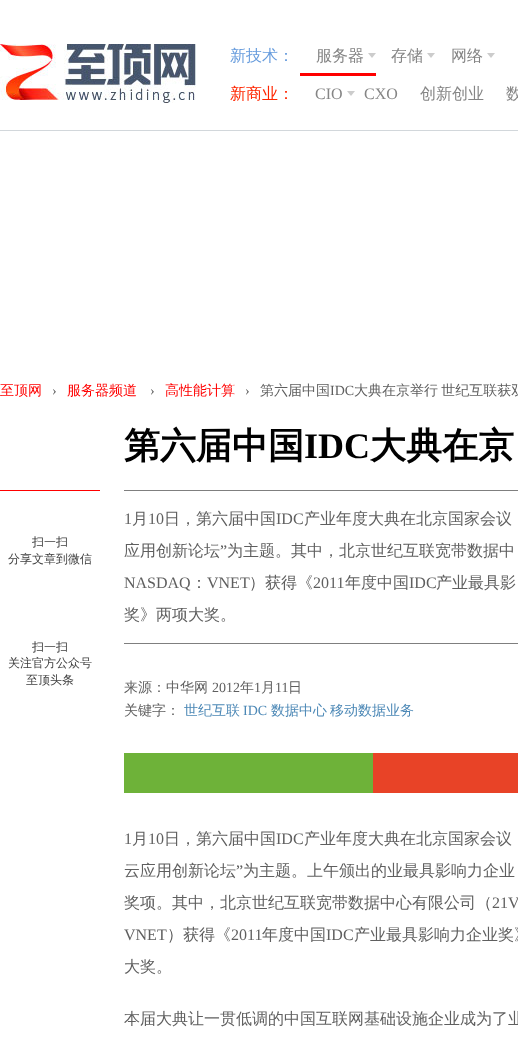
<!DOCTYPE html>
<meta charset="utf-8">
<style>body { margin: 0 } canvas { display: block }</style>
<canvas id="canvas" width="518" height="1049"></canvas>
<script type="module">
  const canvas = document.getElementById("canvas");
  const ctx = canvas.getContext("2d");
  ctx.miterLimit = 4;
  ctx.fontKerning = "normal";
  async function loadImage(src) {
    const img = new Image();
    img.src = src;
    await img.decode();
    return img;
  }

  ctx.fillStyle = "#ffffff";
  ctx.fillRect(0, 0, 518, 1049);
  ctx.fillStyle = "#d2d7db";
  ctx.fillRect(0, 130, 518, 1);
  ctx.drawImage(await loadImage("img1.png"), 0, 44, 196, 59);
  ctx.font = "500 16px WenQuanYi Zen Hei";
  ctx.fillStyle = "#679cdd";
  ctx.fillText("新技术：", 230, 61);
  ctx.drawImage(await loadImage("img2.png"), 368, 53, 8, 5);
  ctx.fillStyle = "#ff0000";
  ctx.fillRect(300, 73, 76, 3);
  ctx.fillStyle = "#858585";
  ctx.fillText("服务器", 316, 61);
  ctx.drawImage(await loadImage("img2.png"), 427, 53, 8, 5);
  ctx.fillText("存储", 391, 61);
  ctx.drawImage(await loadImage("img2.png"), 487, 53, 8, 5);
  ctx.fillText("网络", 451, 61);
  ctx.fillStyle = "#ff2601";
  ctx.fillText("新商业：", 230, 99);
  ctx.drawImage(await loadImage("img2.png"), 347, 91, 8, 5);
  ctx.font = "16px Liberation Serif";
  ctx.fillStyle = "#858585";
  ctx.fillText("CIO", 315, 99);
  ctx.fillText("CXO", 364, 99);
  ctx.font = "500 16px WenQuanYi Zen Hei";
  ctx.fillText("创新创业", 420, 99);
  ctx.fillText("数", 506, 99);
  ctx.font = "500 14px WenQuanYi Zen Hei";
  ctx.fillStyle = "#ff0000";
  ctx.fillText("至顶网", 0, 395);
  ctx.font = "14px Liberation Serif";
  ctx.fillStyle = "#5f5f5f";
  ctx.fillText("›", 52, 395);
  ctx.font = "500 14px WenQuanYi Zen Hei";
  ctx.fillStyle = "#ff0000";
  ctx.fillText("服务器频道", 67, 395);
  ctx.font = "14px Liberation Serif";
  ctx.fillStyle = "#5f5f5f";
  ctx.fillText("›", 150, 395);
  ctx.font = "500 14px WenQuanYi Zen Hei";
  ctx.fillStyle = "#ff0000";
  ctx.fillText("高性能计算", 165, 395);
  ctx.font = "14px Liberation Serif";
  ctx.fillStyle = "#5f5f5f";
  ctx.fillText("›", 245, 395);
  ctx.font = "500 14px WenQuanYi Zen Hei";
  ctx.fillText("第六届中国", 260, 395);
  ctx.font = "14px Liberation Serif";
  ctx.fillText("IDC", 330, 395);
  ctx.wordSpacing = "-1px";
  ctx.font = "500 14px WenQuanYi Zen Hei";
  ctx.fillText("大典在京举行 世纪互联获双", 354, 395);
  ctx.wordSpacing = "0px";
  ctx.font = "bold 36px WenQuanYi Zen Hei";
  ctx.fillStyle = "#000000";
  ctx.fillText("第六届中国", 124, 458);
  ctx.font = "bold 36px Liberation Serif";
  ctx.fillText("IDC", 304, 458);
  ctx.wordSpacing = "-2px";
  ctx.font = "bold 36px WenQuanYi Zen Hei";
  ctx.fillText("大典在京", 370, 458);
  ctx.fillStyle = "#ff0000";
  ctx.fillRect(0, 490, 100, 1);
  ctx.wordSpacing = "0px";
  ctx.font = "500 12px WenQuanYi Zen Hei";
  ctx.fillStyle = "#404040";
  ctx.fillText("扫一扫", 32, 546);
  ctx.fillText("分享文章到微信", 8, 563);
  ctx.fillText("扫一扫", 32, 651);
  ctx.fillText("关注官方公众号", 8, 667);
  ctx.fillText("至顶头条", 26, 684);
  ctx.fillStyle = "#7f7f7f";
  ctx.fillRect(124, 490, 394, 1);
  ctx.fillRect(124, 643, 394, 1);
  ctx.font = "16px Liberation Serif";
  ctx.fillStyle = "#5f5f5f";
  ctx.fillText("1", 124, 524);
  ctx.font = "500 16px WenQuanYi Zen Hei";
  ctx.fillText("月", 132, 524);
  ctx.font = "16px Liberation Serif";
  ctx.fillText("10", 148, 524);
  ctx.font = "500 16px WenQuanYi Zen Hei";
  ctx.fillText("日，第六届中国", 164, 524);
  ctx.font = "16px Liberation Serif";
  ctx.fillText("IDC", 276, 524);
  ctx.font = "500 16px WenQuanYi Zen Hei";
  ctx.fillText("产业年度大典在北京国家会议", 304, 524);
  ctx.fillText("应用创新论坛", 124, 556);
  ctx.font = "16px Liberation Serif";
  ctx.fillText("”", 220, 556);
  ctx.font = "500 16px WenQuanYi Zen Hei";
  ctx.fillText("为主题。其中，北京世纪互联宽带数据中", 227, 556);
  ctx.font = "16px Liberation Serif";
  ctx.fillText("NASDAQ", 124, 588);
  ctx.font = "500 16px WenQuanYi Zen Hei";
  ctx.fillText("：", 191, 588);
  ctx.font = "16px Liberation Serif";
  ctx.fillText("VNET", 207, 588);
  ctx.font = "500 16px WenQuanYi Zen Hei";
  ctx.fillText("）获得《", 249, 588);
  ctx.font = "16px Liberation Serif";
  ctx.fillText("2011", 313, 588);
  ctx.font = "500 16px WenQuanYi Zen Hei";
  ctx.fillText("年度中国", 345, 588);
  ctx.font = "16px Liberation Serif";
  ctx.fillText("IDC", 409, 588);
  ctx.font = "500 16px WenQuanYi Zen Hei";
  ctx.fillText("产业最具影", 436, 588);
  ctx.fillText("奖》两项大奖。", 124, 620);
  ctx.font = "500 14px WenQuanYi Zen Hei";
  ctx.fillText("来源：中华网", 124, 692);
  ctx.font = "14px Liberation Serif";
  ctx.fillText("2012", 212, 692);
  ctx.font = "500 14px WenQuanYi Zen Hei";
  ctx.fillText("年", 240, 692);
  ctx.font = "14px Liberation Serif";
  ctx.fillText("1", 254, 692);
  ctx.font = "500 14px WenQuanYi Zen Hei";
  ctx.fillText("月", 261, 692);
  ctx.font = "14px Liberation Serif";
  ctx.fillText("11", 275, 692);
  ctx.font = "500 14px WenQuanYi Zen Hei";
  ctx.fillText("日", 288, 692);
  ctx.fillText("关键字：", 124, 715);
  ctx.fillStyle = "#4c88b6";
  ctx.fillText("世纪互联", 184, 715);
  ctx.font = "14px Liberation Serif";
  ctx.fillText("IDC", 243, 715);
  ctx.font = "500 14px WenQuanYi Zen Hei";
  ctx.fillText("数据中心", 271, 715);
  ctx.fillText("移动数据业务", 330, 715);
  ctx.fillStyle = "#6eb239";
  ctx.fillRect(124, 753, 249, 40);
  ctx.fillStyle = "#e84327";
  ctx.fillRect(373, 753, 145, 40);
  ctx.font = "16px Liberation Serif";
  ctx.fillStyle = "#5f5f5f";
  ctx.fillText("1", 124, 844);
  ctx.font = "500 16px WenQuanYi Zen Hei";
  ctx.fillText("月", 132, 844);
  ctx.font = "16px Liberation Serif";
  ctx.fillText("10", 148, 844);
  ctx.font = "500 16px WenQuanYi Zen Hei";
  ctx.fillText("日，第六届中国", 164, 844);
  ctx.font = "16px Liberation Serif";
  ctx.fillText("IDC", 276, 844);
  ctx.font = "500 16px WenQuanYi Zen Hei";
  ctx.fillText("产业年度大典在北京国家会议", 304, 844);
  ctx.fillText("云应用创新论坛", 124, 876);
  ctx.font = "16px Liberation Serif";
  ctx.fillText("”", 236, 876);
  ctx.font = "500 16px WenQuanYi Zen Hei";
  ctx.fillText("为主题。上午颁出的业最具影响力企业", 243, 876);
  ctx.fillText("奖项。其中，北京世纪互联宽带数据中心有限公司（", 124, 908);
  ctx.font = "16px Liberation Serif";
  ctx.fillText("21V", 492, 908);
  ctx.fillText("VNET", 124, 940);
  ctx.font = "500 16px WenQuanYi Zen Hei";
  ctx.fillText("）获得《", 167, 940);
  ctx.font = "16px Liberation Serif";
  ctx.fillText("2011", 231, 940);
  ctx.font = "500 16px WenQuanYi Zen Hei";
  ctx.fillText("年度中国", 262, 940);
  ctx.font = "16px Liberation Serif";
  ctx.fillText("IDC", 326, 940);
  ctx.font = "500 16px WenQuanYi Zen Hei";
  ctx.fillText("产业最具影响力企业奖》", 354, 940);
  ctx.fillText("大奖。", 124, 972);
  ctx.fillText("本届大典让一贯低调的中国互联网基础设施企业成为了业", 124, 1024);
</script>
